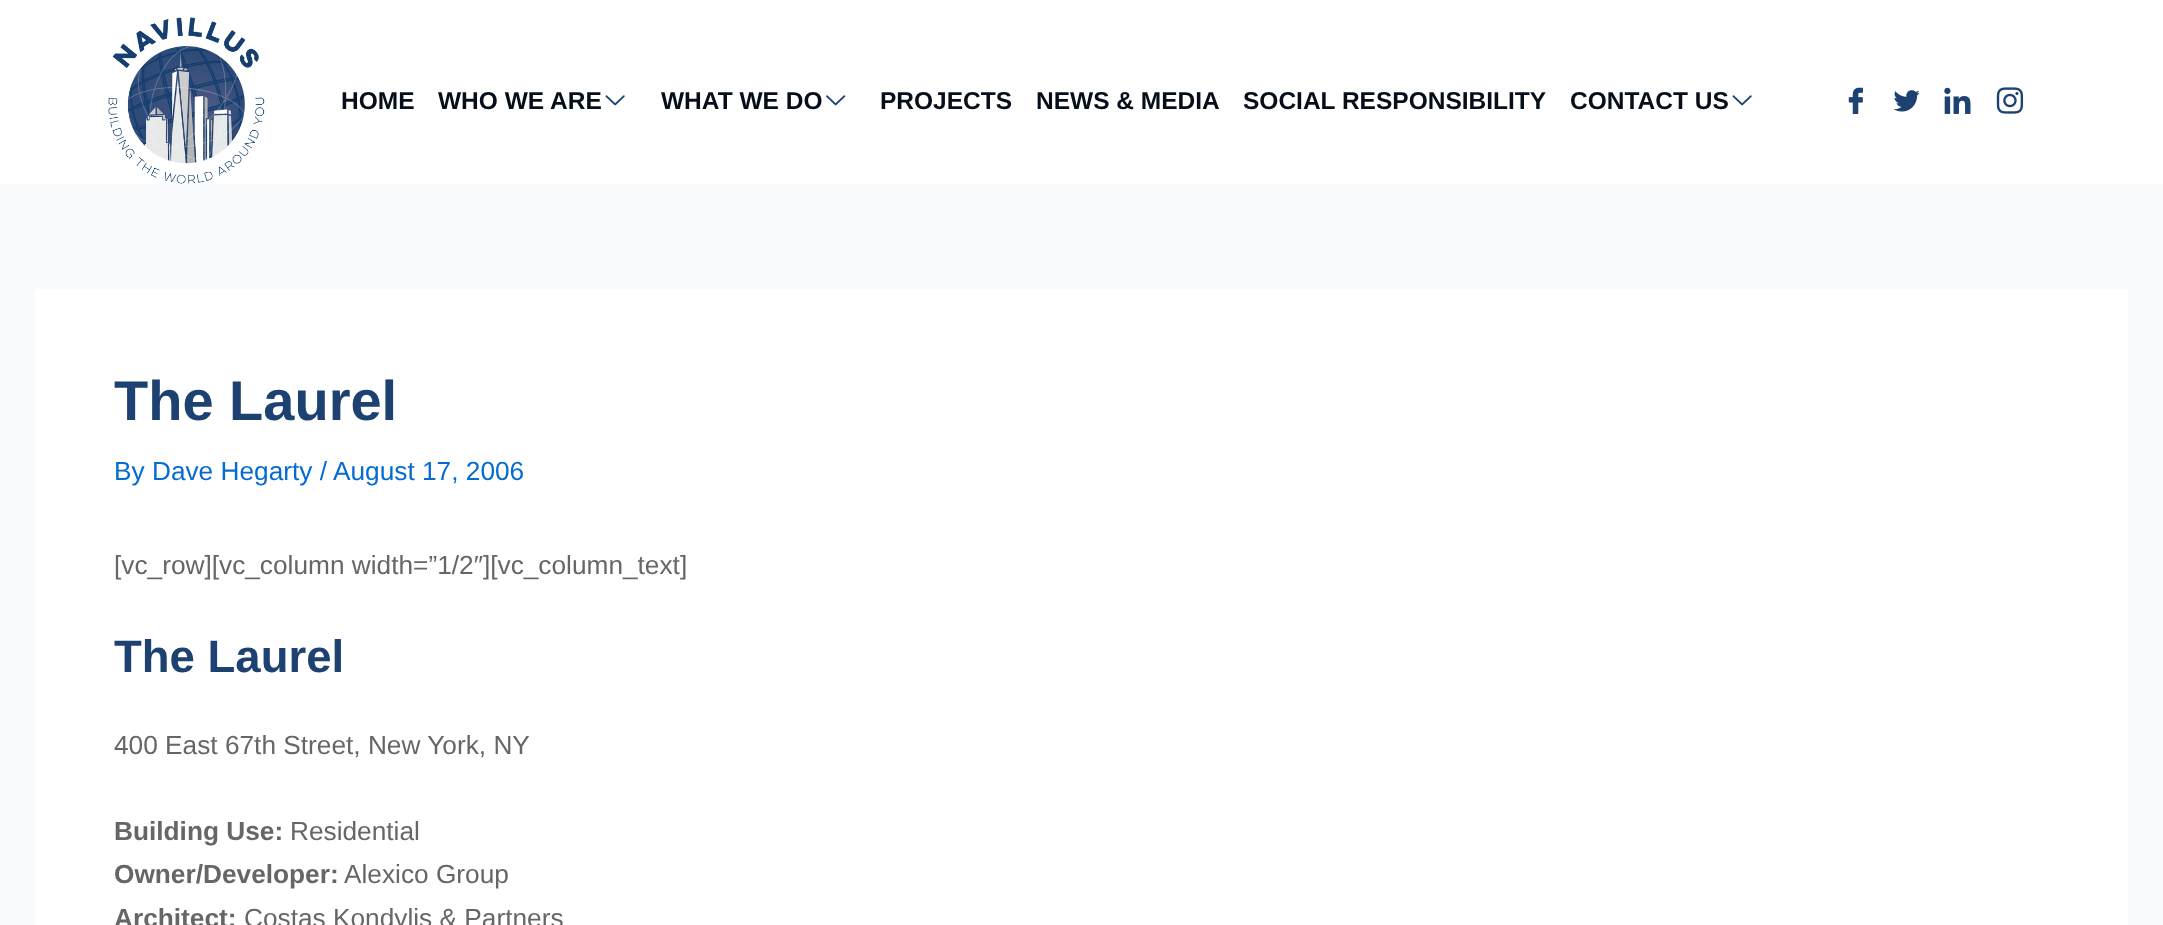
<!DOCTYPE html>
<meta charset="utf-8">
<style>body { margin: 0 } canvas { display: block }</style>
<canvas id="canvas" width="2163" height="925"></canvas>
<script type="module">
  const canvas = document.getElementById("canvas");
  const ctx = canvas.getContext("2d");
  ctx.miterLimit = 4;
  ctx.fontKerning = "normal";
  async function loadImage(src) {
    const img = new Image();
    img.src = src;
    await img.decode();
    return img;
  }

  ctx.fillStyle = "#f9fafb";
  ctx.fillRect(0, 0, 2163, 925);
  ctx.fillStyle = "#ffffff";
  ctx.fillRect(0, 0, 2163, 184);
  ctx.drawImage(await loadImage("img1.png"), 108, 17, 157, 167);
  ctx.font = "bold 24.5px Liberation Sans";
  ctx.fillStyle = "#050e19";
  ctx.fillText("HOME", 341, 109);
  ctx.fillText("WHO WE ARE", 438, 109);
  ctx.drawImage(await loadImage("img2.png"), 605, 95, 20, 11);
  ctx.fillText("WHAT WE DO", 661, 109);
  ctx.drawImage(await loadImage("img3.png"), 826, 95, 20, 11);
  ctx.fillText("PROJECTS", 880, 109);
  ctx.fillText("NEWS & MEDIA", 1036, 109);
  ctx.fillText("SOCIAL RESPONSIBILITY", 1243, 109);
  ctx.fillText("CONTACT US", 1570, 109);
  ctx.drawImage(await loadImage("img2.png"), 1732, 95, 20, 11);
  ctx.drawImage(await loadImage("img4.png"), 1848, 87, 15, 27);
  ctx.drawImage(await loadImage("img5.png"), 1893, 90, 27, 22);
  ctx.drawImage(await loadImage("img6.png"), 1944, 87, 27, 27);
  ctx.drawImage(await loadImage("img7.png"), 1996, 87, 28, 27);
  ctx.fillStyle = "#ffffff";
  ctx.fillRect(35, 289, 2093, 636);
  ctx.font = "bold 56px Liberation Sans";
  ctx.fillStyle = "#1d4272";
  ctx.fillText("The Laurel", 114, 420);
  ctx.font = "26.25px Liberation Sans";
  ctx.fillStyle = "#046bd2";
  ctx.fillText("By Dave Hegarty /", 114, 480);
  ctx.fillText("August 17, 2006", 333, 480);
  ctx.fillStyle = "#666666";
  ctx.fillText("[vc_row][vc_column width=”1/2″][vc_column_text]", 114, 574);
  ctx.font = "bold 45.5px Liberation Sans";
  ctx.fillStyle = "#1d4272";
  ctx.fillText("The Laurel", 114, 672);
  ctx.font = "26.25px Liberation Sans";
  ctx.fillStyle = "#666666";
  ctx.fillText("400 East 67th Street, New York, NY", 114, 754);
  ctx.font = "bold 26.25px Liberation Sans";
  ctx.fillText("Building Use:", 114, 840);
  ctx.font = "26.25px Liberation Sans";
  ctx.fillText("Residential", 290, 840);
  ctx.font = "bold 26.25px Liberation Sans";
  ctx.fillText("Owner/Developer:", 114, 883);
  ctx.font = "26.25px Liberation Sans";
  ctx.fillText("Alexico Group", 344, 883);
  ctx.font = "bold 26.25px Liberation Sans";
  ctx.fillText("Architect:", 114, 927);
  ctx.font = "26.25px Liberation Sans";
  ctx.fillText("Costas Kondylis & Partners", 244, 927);
</script>
